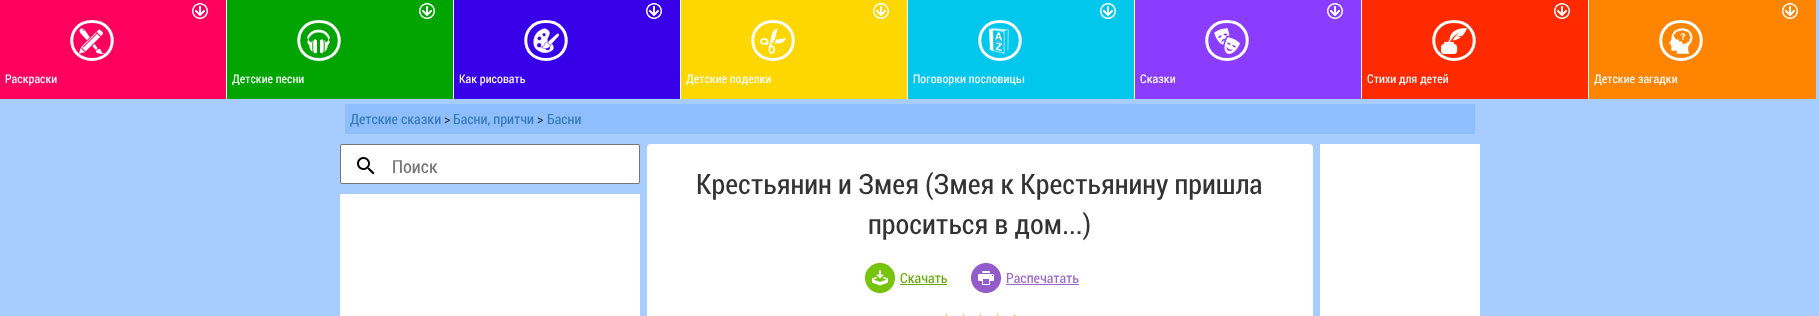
<!DOCTYPE html>
<meta charset="utf-8">
<style>body { margin: 0 } canvas { display: block }</style>
<canvas id="canvas" width="1819" height="316"></canvas>
<script type="module">
  const canvas = document.getElementById("canvas");
  const ctx = canvas.getContext("2d");
  ctx.miterLimit = 4;
  ctx.fontKerning = "normal";
  async function loadImage(src) {
    const img = new Image();
    img.src = src;
    await img.decode();
    return img;
  }

  ctx.fillStyle = "#a7cdff";
  ctx.fillRect(0, 0, 1819, 316);
  ctx.fillStyle = "#ff005f";
  ctx.fillRect(0, 0, 226, 99);
  ctx.fillStyle = "#ffffff";
  ctx.fillRect(226, 0, 1, 99);
  ctx.drawImage(await loadImage("img1.png"), 192, 3, 16, 16);
  ctx.drawImage(await loadImage("img2.png"), 79, 28, 26, 26);
  ctx.beginPath();
  ctx.moveTo(92, 21.5);
  ctx.bezierCurveTo(119, 21.5, 119, 59.5, 92, 59.5);
  ctx.bezierCurveTo(65, 59.5, 65, 21.5, 92, 21.5);
  ctx.closePath();
  ctx.strokeStyle = "#ffffff";
  ctx.lineWidth = 3;
  ctx.stroke();
  ctx.font = "12px Roboto Condensed";
  ctx.fillText("Раскраски", 5, 83);
  ctx.fillStyle = "#00a400";
  ctx.fillRect(227, 0, 226, 99);
  ctx.fillStyle = "#ffffff";
  ctx.fillRect(453, 0, 1, 99);
  ctx.drawImage(await loadImage("img3.png"), 419, 3, 16, 16);
  ctx.drawImage(await loadImage("img4.png"), 307, 29, 23, 25);
  ctx.beginPath();
  ctx.moveTo(319, 21.5);
  ctx.bezierCurveTo(346, 21.5, 346, 59.5, 319, 59.5);
  ctx.bezierCurveTo(292, 59.5, 292, 21.5, 319, 21.5);
  ctx.closePath();
  ctx.stroke();
  ctx.fillText("Детские песни", 232, 83);
  ctx.fillStyle = "#3700e9";
  ctx.fillRect(454, 0, 226, 99);
  ctx.fillStyle = "#ffffff";
  ctx.fillRect(680, 0, 1, 99);
  ctx.drawImage(await loadImage("img5.png"), 646, 3, 16, 16);
  ctx.drawImage(await loadImage("img6.png"), 533, 28, 26, 25);
  ctx.beginPath();
  ctx.moveTo(546, 21.5);
  ctx.bezierCurveTo(573, 21.5, 573, 59.5, 546, 59.5);
  ctx.bezierCurveTo(519, 59.5, 519, 21.5, 546, 21.5);
  ctx.closePath();
  ctx.stroke();
  ctx.fillText("Как рисовать", 459, 83);
  ctx.fillStyle = "#ffd700";
  ctx.fillRect(681, 0, 226, 99);
  ctx.fillStyle = "#ffffff";
  ctx.fillRect(907, 0, 1, 99);
  ctx.drawImage(await loadImage("img7.png"), 873, 3, 16, 16);
  ctx.drawImage(await loadImage("img8.png"), 760, 28, 26, 26);
  ctx.beginPath();
  ctx.moveTo(773, 21.5);
  ctx.bezierCurveTo(800, 21.5, 800, 59.5, 773, 59.5);
  ctx.bezierCurveTo(746, 59.5, 746, 21.5, 773, 21.5);
  ctx.closePath();
  ctx.stroke();
  ctx.fillText("Детские поделки", 686, 83);
  ctx.fillStyle = "#00c7eb";
  ctx.fillRect(908, 0, 226, 99);
  ctx.fillStyle = "#ffffff";
  ctx.fillRect(1134, 0, 1, 99);
  ctx.drawImage(await loadImage("img9.png"), 1100, 3, 16, 16);
  ctx.drawImage(await loadImage("img10.png"), 988, 28, 21, 26);
  ctx.beginPath();
  ctx.moveTo(1000, 21.5);
  ctx.bezierCurveTo(1027, 21.5, 1027, 59.5, 1000, 59.5);
  ctx.bezierCurveTo(973, 59.5, 973, 21.5, 1000, 21.5);
  ctx.closePath();
  ctx.stroke();
  ctx.fillText("Поговорки пословицы", 913, 83);
  ctx.fillStyle = "#8a3dff";
  ctx.fillRect(1135, 0, 226, 99);
  ctx.fillStyle = "#ffffff";
  ctx.fillRect(1361, 0, 1, 99);
  ctx.drawImage(await loadImage("img11.png"), 1327, 3, 16, 16);
  ctx.drawImage(await loadImage("img12.png"), 1214, 28, 26, 26);
  ctx.beginPath();
  ctx.moveTo(1227, 21.5);
  ctx.bezierCurveTo(1254, 21.5, 1254, 59.5, 1227, 59.5);
  ctx.bezierCurveTo(1200, 59.5, 1200, 21.5, 1227, 21.5);
  ctx.closePath();
  ctx.stroke();
  ctx.fillText("Сказки", 1140, 83);
  ctx.fillStyle = "#ff2a00";
  ctx.fillRect(1362, 0, 226, 99);
  ctx.fillStyle = "#ffffff";
  ctx.fillRect(1588, 0, 1, 99);
  ctx.drawImage(await loadImage("img13.png"), 1554, 3, 16, 16);
  ctx.drawImage(await loadImage("img14.png"), 1441, 28, 26, 26);
  ctx.beginPath();
  ctx.moveTo(1454, 21.5);
  ctx.bezierCurveTo(1481, 21.5, 1481, 59.5, 1454, 59.5);
  ctx.bezierCurveTo(1427, 59.5, 1427, 21.5, 1454, 21.5);
  ctx.closePath();
  ctx.stroke();
  ctx.fillText("Стихи для детей", 1367, 83);
  ctx.fillStyle = "#ff8400";
  ctx.fillRect(1589, 0, 227, 99);
  ctx.drawImage(await loadImage("img15.png"), 1782, 3, 16, 16);
  ctx.drawImage(await loadImage("img16.png"), 1669, 28, 24, 26);
  ctx.beginPath();
  ctx.moveTo(1681, 21.5);
  ctx.bezierCurveTo(1708, 21.5, 1708, 59.5, 1681, 59.5);
  ctx.bezierCurveTo(1654, 59.5, 1654, 21.5, 1681, 21.5);
  ctx.closePath();
  ctx.stroke();
  ctx.fillStyle = "#ffffff";
  ctx.fillText("Детские загадки", 1594, 83);
  ctx.fillStyle = "#8ebefd";
  ctx.fillRect(345, 104, 1130, 30);
  ctx.font = "14px Roboto Condensed";
  ctx.fillStyle = "#337ab7";
  ctx.fillText("Детские сказки", 350, 124);
  ctx.fillStyle = "#333333";
  ctx.fillText(">", 444, 124);
  ctx.fillStyle = "#337ab7";
  ctx.fillText("Басни, притчи", 453, 124);
  ctx.fillStyle = "#333333";
  ctx.fillText(">", 537, 124);
  ctx.fillStyle = "#337ab7";
  ctx.fillText("Басни", 547, 124);
  ctx.fillStyle = "#ffffff";
  ctx.beginPath();
  ctx.roundRect(340.5, 144.5, 299, 39, 1.5);
  ctx.fill();
  ctx.strokeStyle = "#767676";
  ctx.lineWidth = 1;
  ctx.stroke();
  ctx.drawImage(await loadImage("img17.png"), 357, 157, 18, 18);
  ctx.font = "18px Roboto Condensed";
  ctx.fillStyle = "#757575";
  ctx.fillText("Поиск", 392, 173);
  ctx.fillStyle = "#ffffff";
  ctx.fillRect(340, 194, 300, 122);
  ctx.fillRect(1320, 144, 160, 172);
  ctx.beginPath();
  ctx.roundRect(647, 144, 666, 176, 4);
  ctx.fill();
  ctx.font = "28px Roboto Condensed";
  ctx.fillStyle = "#333333";
  ctx.fillText("Крестьянин и Змея (Змея к Крестьянину пришла", 696, 194);
  ctx.fillText("проситься в дом...)", 868, 234);
  ctx.drawImage(await loadImage("img18.png"), 865, 263, 30, 30);
  ctx.font = "14px Roboto Condensed";
  ctx.fillStyle = "#66ab09";
  ctx.fillText("Скачать", 900, 283);
  ctx.fillRect(900, 284, 47, 1);
  ctx.drawImage(await loadImage("img19.png"), 971, 263, 30, 30);
  ctx.fillStyle = "#9968c8";
  ctx.fillText("Распечатать", 1006, 283);
  ctx.fillRect(1006, 284, 73, 1);
  ctx.drawImage(await loadImage("img20.png"), 945, 314, 71, 2);
  ctx.drawImage(await loadImage("img21.png"), 941, 313, 79, 3);
</script>
